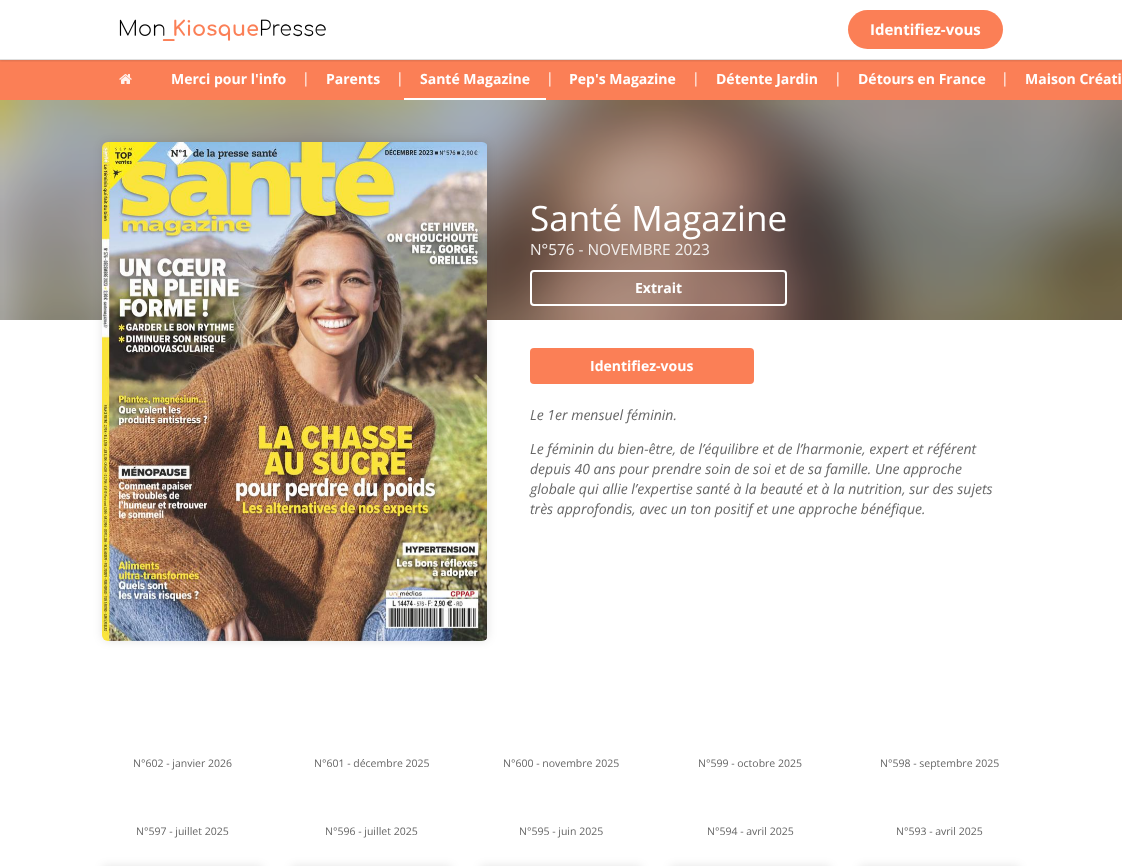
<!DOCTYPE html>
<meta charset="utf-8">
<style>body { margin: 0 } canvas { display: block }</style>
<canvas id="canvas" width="1122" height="866"></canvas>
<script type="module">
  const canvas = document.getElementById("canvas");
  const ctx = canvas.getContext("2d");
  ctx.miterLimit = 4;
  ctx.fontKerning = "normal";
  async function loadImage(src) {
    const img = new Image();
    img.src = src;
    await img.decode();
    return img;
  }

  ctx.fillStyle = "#ffffff";
  ctx.fillRect(0, 0, 1122, 866);
  ctx.fillStyle = "#fb7f56";
  ctx.fillRect(0, 60, 1122, 40);
  ctx.save();
  ctx.beginPath();
  ctx.rect(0, 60, 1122, 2);
  ctx.clip();
  ctx.fillStyle = "rgba(34, 36, 38, 0.15)";
  ctx.filter = "blur(1px)";
  ctx.beginPath();
  ctx.rect(0, 1, 1122, 60);
  ctx.fill();
  ctx.filter = "none";
  ctx.restore();
  ctx.fillStyle = "#dedede";
  ctx.fillRect(0, 59, 1122, 1);
  ctx.drawImage(await loadImage("img1.png"), 119, 19, 207, 22);
  ctx.fillStyle = "#fb7f56";
  ctx.beginPath();
  ctx.roundRect(848, 10, 155, 39, 19.5);
  ctx.fill();
  ctx.font = "bold 15px Open Sans";
  ctx.fillStyle = "#ffffff";
  ctx.fillText("Identifiez-vous", 870, 35);
  ctx.drawImage(await loadImage("img2.png"), 119, 74, 13, 10);
  ctx.font = "bold 14px Open Sans";
  ctx.fillText("Merci pour l'info", 171, 84);
  ctx.font = "14px Open Sans";
  ctx.fillText("|", 302, 83);
  ctx.font = "bold 14px Open Sans";
  ctx.fillText("Parents", 326, 84);
  ctx.font = "14px Open Sans";
  ctx.fillText("|", 396, 83);
  ctx.fillRect(404, 98, 142, 2);
  ctx.font = "bold 14px Open Sans";
  ctx.fillText("Santé Magazine", 420, 84);
  ctx.font = "14px Open Sans";
  ctx.fillText("|", 546, 83);
  ctx.font = "bold 14px Open Sans";
  ctx.fillText("Pep's Magazine", 569, 84);
  ctx.font = "14px Open Sans";
  ctx.fillText("|", 692, 83);
  ctx.font = "bold 14px Open Sans";
  ctx.fillText("Détente Jardin", 716, 84);
  ctx.font = "14px Open Sans";
  ctx.fillText("|", 834, 83);
  ctx.font = "bold 14px Open Sans";
  ctx.fillText("Détours en France", 858, 84);
  ctx.font = "14px Open Sans";
  ctx.fillText("|", 1001, 83);
  ctx.font = "bold 14px Open Sans";
  ctx.fillText("Maison Créati", 1025, 84);
  ctx.drawImage(await loadImage("img3.png"), 0, 100, 1122, 220);
  ctx.fillStyle = "rgba(0, 0, 0, 0.1)";
  ctx.filter = "blur(5px)";
  ctx.beginPath();
  ctx.roundRect(102, 142, 386, 499, 6);
  ctx.fill();
  ctx.filter = "none";
  ctx.drawImage(await loadImage("img4.png"), 102, 142, 385, 499);
  ctx.font = "35px Open Sans";
  ctx.fillStyle = "#ffffff";
  ctx.fillText("Santé Magazine", 530, 231);
  ctx.font = "15.4px Open Sans";
  ctx.fillStyle = "#f1edeb";
  ctx.fillText("N°576 - NOVEMBRE 2023", 530, 255);
  ctx.beginPath();
  ctx.roundRect(531, 271, 255, 34, 3);
  ctx.strokeStyle = "#ffffff";
  ctx.lineWidth = 2;
  ctx.stroke();
  ctx.font = "bold 14px Open Sans";
  ctx.fillStyle = "#ffffff";
  ctx.fillText("Extrait", 635, 293);
  ctx.fillStyle = "#fb7f56";
  ctx.beginPath();
  ctx.roundRect(530, 348, 224, 36, 4);
  ctx.fill();
  ctx.fillStyle = "#ffffff";
  ctx.fillText("Identifiez-vous", 590, 371);
  ctx.font = "italic 14px Open Sans";
  ctx.fillStyle = "#666666";
  ctx.fillText("Le 1er mensuel féminin.", 530, 420);
  ctx.fillText("Le féminin du bien-être, de l’équilibre et de l’harmonie, expert et référent", 530, 454);
  ctx.fillText("depuis 40 ans pour prendre soin de soi et de sa famille. Une approche", 530, 474);
  ctx.fillText("globale qui allie l’expertise santé à la beauté et à la nutrition, sur des sujets", 530, 494);
  ctx.fillText("très approfondis, avec un ton positif et une approche bénéfique.", 530, 514);
  ctx.font = "10.5px Open Sans";
  ctx.fillText("N°602 - janvier 2026", 133, 767);
  ctx.fillText("N°601 - décembre 2025", 314, 767);
  ctx.fillText("N°600 - novembre 2025", 503, 767);
  ctx.fillText("N°599 - octobre 2025", 698, 767);
  ctx.fillText("N°598 - septembre 2025", 880, 767);
  ctx.fillText("N°597 - juillet 2025", 136, 835);
  ctx.fillText("N°596 - juillet 2025", 325, 835);
  ctx.fillText("N°595 - juin 2025", 519, 835);
  ctx.fillText("N°594 - avril 2025", 707, 835);
  ctx.fillText("N°593 - avril 2025", 896, 835);
  ctx.fillStyle = "rgba(0, 0, 0, 0.1)";
  ctx.filter = "blur(5px)";
  ctx.beginPath();
  ctx.roundRect(102, 866, 161, 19, 4);
  ctx.fill();
  ctx.filter = "none";
  ctx.filter = "blur(5px)";
  ctx.beginPath();
  ctx.roundRect(291, 866, 161, 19, 4);
  ctx.fill();
  ctx.filter = "none";
  ctx.filter = "blur(5px)";
  ctx.beginPath();
  ctx.roundRect(480, 866, 162, 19, 4);
  ctx.fill();
  ctx.filter = "none";
  ctx.filter = "blur(5px)";
  ctx.beginPath();
  ctx.roundRect(670, 866, 161, 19, 4);
  ctx.fill();
  ctx.filter = "none";
  ctx.filter = "blur(5px)";
  ctx.beginPath();
  ctx.roundRect(859, 866, 161, 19, 4);
  ctx.fill();
  ctx.filter = "none";
</script>
